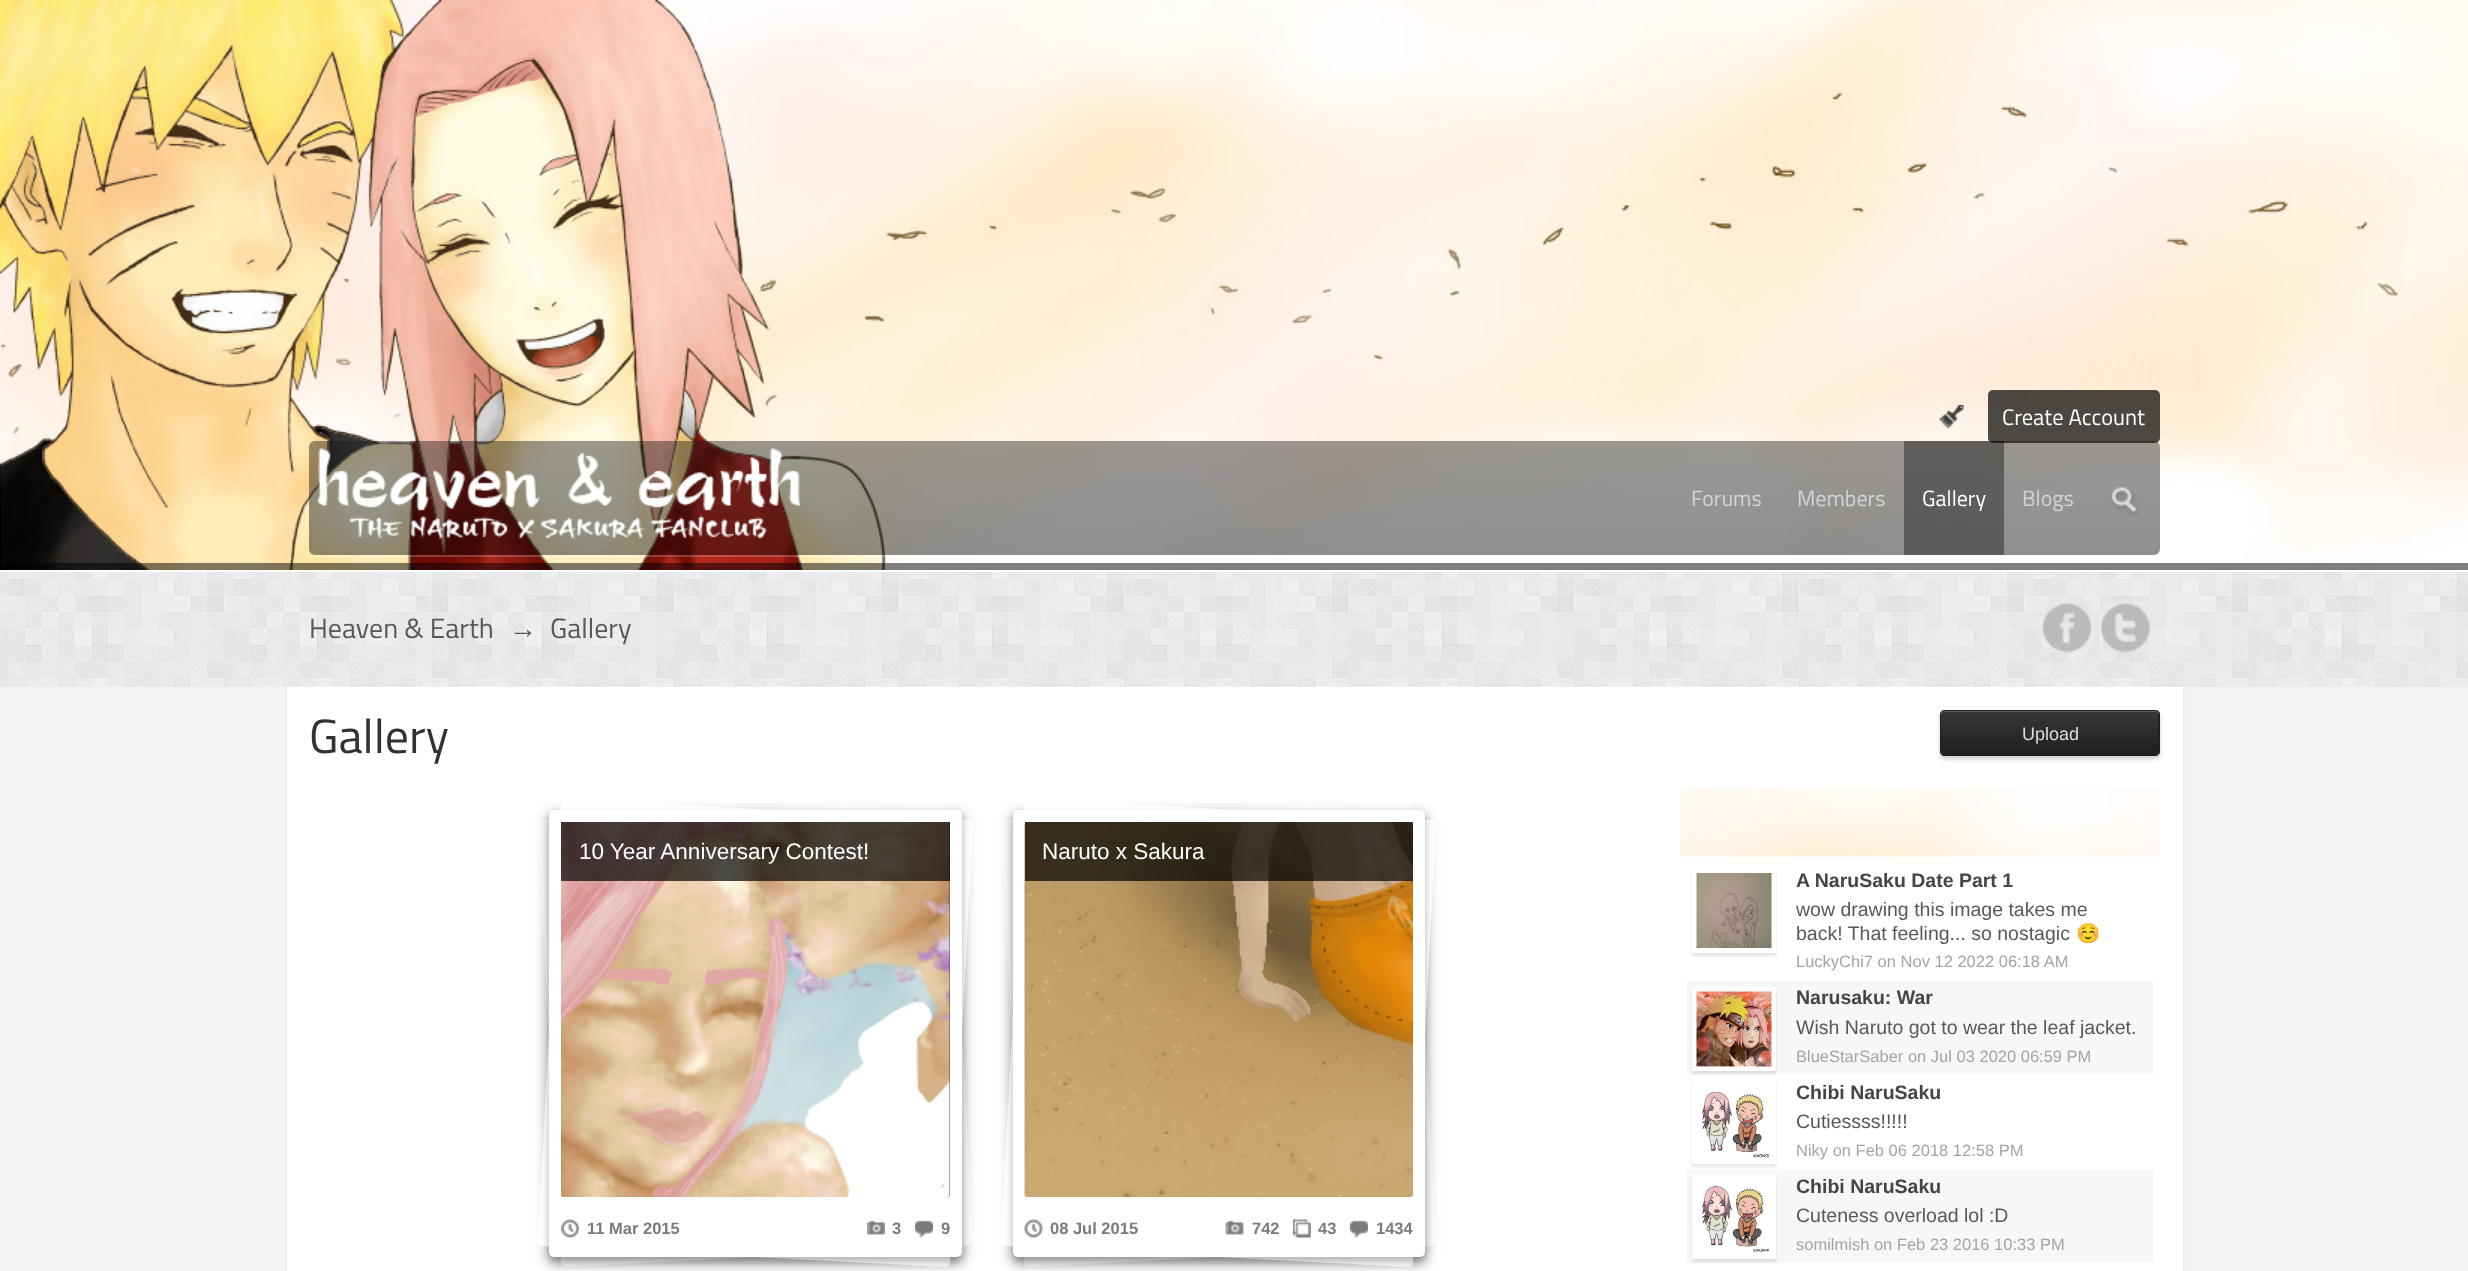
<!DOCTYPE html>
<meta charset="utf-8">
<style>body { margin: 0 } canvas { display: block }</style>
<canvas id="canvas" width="2468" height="1271"></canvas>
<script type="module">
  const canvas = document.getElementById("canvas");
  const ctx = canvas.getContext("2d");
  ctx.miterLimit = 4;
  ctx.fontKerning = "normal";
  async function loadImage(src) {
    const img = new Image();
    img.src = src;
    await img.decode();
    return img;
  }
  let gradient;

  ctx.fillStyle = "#f4f4f6";
  ctx.fillRect(0, 0, 2468, 1271);
  ctx.drawImage(await loadImage("img1.png"), 0, 0, 2468, 570);
  ctx.fillStyle = "rgba(0, 0, 0, 0.5)";
  ctx.fillRect(0, 563, 2468, 7);
  ctx.drawImage(await loadImage("img2.png"), 1939, 405, 25, 25);
  ctx.fillStyle = "rgba(255, 255, 255, 0.3)";
  ctx.beginPath();
  ctx.moveTo(1988, 440);
  ctx.bezierCurveTo(1989, 442, 1991, 444, 1993, 444);
  ctx.lineTo(2155, 444);
  ctx.bezierCurveTo(2158, 444, 2160, 442, 2160, 439);
  ctx.lineTo(2160, 438);
  ctx.bezierCurveTo(2160, 440, 2158, 442, 2156, 442);
  ctx.lineTo(1992, 442);
  ctx.bezierCurveTo(1990, 442, 1989, 442, 1988, 440);
  ctx.closePath();
  ctx.fill();
  ctx.fillStyle = "rgba(0, 0, 0, 0.7)";
  ctx.beginPath();
  ctx.roundRect(1988, 390, 172, 53, 5);
  ctx.fill();
  ctx.font = "22.5px Titillium Web";
  ctx.fillStyle = "#ffffff";
  ctx.fillText("Create Account", 2002, 425);
  ctx.fillStyle = "rgba(255, 255, 255, 0.2)";
  ctx.beginPath();
  ctx.moveTo(309, 549);
  ctx.bezierCurveTo(309, 553, 310, 557, 315, 557);
  ctx.lineTo(2154, 557);
  ctx.bezierCurveTo(2159, 557, 2160, 553, 2160, 549);
  ctx.bezierCurveTo(2160, 552, 2157, 555, 2154, 555);
  ctx.lineTo(315, 555);
  ctx.bezierCurveTo(312, 555, 309, 552, 309, 549);
  ctx.closePath();
  ctx.fill();
  gradient = ctx.createLinearGradient(1235, 441, 1235, 555);
  gradient.addColorStop(0, "rgba(26, 26, 26, 0.44)");
  gradient.addColorStop(1, "rgba(0, 0, 0, 0.44)");
  ctx.fillStyle = gradient;
  ctx.beginPath();
  ctx.roundRect(309, 441, 1851, 114, 6);
  ctx.fill();
  ctx.drawImage(await loadImage("img3.png"), 317, 448, 484, 91);
  ctx.font = "22px Titillium Web";
  ctx.fillStyle = "#d4d4d4";
  ctx.fillText("Forums", 1691, 506);
  ctx.fillText("Members", 1797, 506);
  ctx.fillStyle = "rgba(0, 0, 0, 0.37)";
  ctx.fillRect(1904, 441, 100, 114);
  ctx.fillStyle = "#ffffff";
  ctx.fillText("Gallery", 1922, 506);
  ctx.fillStyle = "#d4d4d4";
  ctx.fillText("Blogs", 2022, 506);
  ctx.drawImage(await loadImage("img4.png"), 2111, 487, 28, 29);
  ctx.fillStyle = "#dbdbdb";
  ctx.filter = "blur(1.5px)";
  ctx.beginPath();
  ctx.rect(287, 689, 1896, 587);
  ctx.fill();
  ctx.filter = "none";
  ctx.drawImage(await loadImage("img5.png"), 0, 572, 2468, 115);
  ctx.fillStyle = "#ffffff";
  ctx.fillRect(0, 570, 2468, 2);
  ctx.font = "28px Titillium Web";
  ctx.fillStyle = "#585858";
  ctx.fillText("Heaven & Earth", 309, 638);
  ctx.font = "28px Liberation Sans";
  ctx.fillText("→", 509, 638);
  ctx.font = "28px Titillium Web";
  ctx.fillText("Gallery", 550, 638);
  ctx.drawImage(await loadImage("img7.png"), 2043, 652, 48, 1);
  ctx.drawImage(await loadImage("img6.png"), 2043, 603, 48, 50);
  ctx.drawImage(await loadImage("img8.png"), 2101, 603, 49, 50);
  ctx.drawImage(await loadImage("img9.png"), 2101, 603, 49, 50);
  ctx.fillStyle = "#ffffff";
  ctx.fillRect(287, 687, 1896, 584);
  ctx.font = "48px Titillium Web";
  ctx.fillStyle = "#323232";
  ctx.fillText("Gallery", 309, 753);
  ctx.fillStyle = "rgba(0, 0, 0, 0.2)";
  ctx.filter = "blur(2px)";
  ctx.beginPath();
  ctx.roundRect(1940, 713, 220, 46, 5);
  ctx.fill();
  ctx.filter = "none";
  gradient = ctx.createLinearGradient(2050, 711, 2050, 756);
  gradient.addColorStop(0.01, "#383838");
  gradient.addColorStop(1, "#1e1e1e");
  ctx.fillStyle = gradient;
  ctx.beginPath();
  ctx.moveTo(1944, 711);
  ctx.lineTo(2156, 711);
  ctx.bezierCurveTo(2157, 711, 2158, 712, 2158, 714);
  ctx.lineTo(2158, 752);
  ctx.bezierCurveTo(2158, 754, 2157, 756, 2156, 756);
  ctx.lineTo(1944, 756);
  ctx.bezierCurveTo(1942, 756, 1941, 754, 1941, 752);
  ctx.lineTo(1941, 714);
  ctx.bezierCurveTo(1941, 712, 1942, 711, 1944, 711);
  ctx.closePath();
  ctx.fill();
  ctx.fillStyle = "#5c5c5c";
  ctx.beginPath();
  ctx.moveTo(1944, 712);
  ctx.lineTo(2156, 712);
  ctx.bezierCurveTo(2159, 712, 2158, 727, 2158, 728);
  ctx.lineTo(2158, 754);
  ctx.lineTo(2158, 752);
  ctx.lineTo(2158, 714);
  ctx.bezierCurveTo(2158, 712, 2157, 711, 2156, 711);
  ctx.lineTo(1944, 711);
  ctx.bezierCurveTo(1942, 711, 1941, 712, 1941, 714);
  ctx.lineTo(1941, 716);
  ctx.bezierCurveTo(1941, 714, 1942, 712, 1944, 712);
  ctx.closePath();
  ctx.fill();
  ctx.fillStyle = "#212121";
  ctx.beginPath();
  ctx.moveTo(1944, 710);
  ctx.lineTo(2156, 710);
  ctx.bezierCurveTo(2158, 710, 2160, 712, 2160, 714);
  ctx.lineTo(2160, 752);
  ctx.bezierCurveTo(2160, 754, 2158, 756, 2156, 756);
  ctx.lineTo(1944, 756);
  ctx.bezierCurveTo(1942, 756, 1940, 754, 1940, 752);
  ctx.lineTo(1940, 714);
  ctx.bezierCurveTo(1940, 712, 1942, 710, 1944, 710);
  ctx.closePath();
  ctx.moveTo(1944, 711);
  ctx.lineTo(2156, 711);
  ctx.bezierCurveTo(2157, 711, 2158, 712, 2158, 714);
  ctx.lineTo(2158, 752);
  ctx.bezierCurveTo(2158, 754, 2157, 756, 2156, 756);
  ctx.lineTo(1944, 756);
  ctx.bezierCurveTo(1942, 756, 1941, 754, 1941, 752);
  ctx.lineTo(1941, 714);
  ctx.bezierCurveTo(1941, 712, 1942, 711, 1944, 711);
  ctx.closePath();
  ctx.fill("evenodd");
  ctx.font = "18px Liberation Sans";
  ctx.fillStyle = "#dddddd";
  ctx.fillText("Upload", 2022, 740);
  ctx.fillStyle = "rgba(0, 0, 0, 0.2)";
  ctx.filter = "blur(7.5px)";
  ctx.beginPath();
  ctx.roundRect(549, 815, 413, 447, 5);
  ctx.fill();
  ctx.filter = "none";
  ctx.fillStyle = "#ffffff";
  ctx.beginPath();
  ctx.moveTo(542, 820);
  ctx.lineTo(945, 799);
  ctx.bezierCurveTo(948, 799, 950, 801, 950, 803);
  ctx.lineTo(973, 1241);
  ctx.bezierCurveTo(973, 1243, 971, 1245, 969, 1246);
  ctx.lineTo(566, 1267);
  ctx.bezierCurveTo(563, 1267, 561, 1265, 561, 1262);
  ctx.lineTo(538, 825);
  ctx.bezierCurveTo(538, 823, 540, 820, 542, 820);
  ctx.closePath();
  ctx.fill();
  ctx.fillStyle = "rgba(0, 0, 0, 0.2)";
  ctx.filter = "blur(7.5px)";
  ctx.beginPath();
  ctx.roundRect(549, 815, 413, 447, 5);
  ctx.fill();
  ctx.filter = "none";
  ctx.fillStyle = "#ffffff";
  ctx.beginPath();
  ctx.moveTo(566, 799);
  ctx.lineTo(969, 820);
  ctx.bezierCurveTo(971, 820, 973, 823, 973, 825);
  ctx.lineTo(950, 1262);
  ctx.bezierCurveTo(950, 1265, 948, 1267, 945, 1267);
  ctx.lineTo(542, 1246);
  ctx.bezierCurveTo(540, 1245, 538, 1243, 538, 1241);
  ctx.lineTo(561, 803);
  ctx.bezierCurveTo(561, 801, 563, 799, 566, 799);
  ctx.closePath();
  ctx.fill();
  ctx.fillStyle = "rgba(0, 0, 0, 0.3)";
  ctx.filter = "blur(4px)";
  ctx.beginPath();
  ctx.roundRect(549, 815, 413, 447, 5);
  ctx.fill();
  ctx.filter = "none";
  ctx.fillStyle = "#ffffff";
  ctx.beginPath();
  ctx.roundRect(549, 810, 413, 447, 5);
  ctx.fill();
  ctx.fillStyle = "#494949";
  ctx.beginPath();
  ctx.roundRect(561, 822, 389, 375, 3);
  ctx.fill();
  ctx.drawImage(await loadImage("img10.png"), 561, 822, 389, 375);
  ctx.fillStyle = "rgba(0, 0, 0, 0.7)";
  ctx.fillRect(561, 822, 389, 59);
  ctx.font = "22.5px Liberation Sans";
  ctx.fillStyle = "#ffffff";
  ctx.fillText("10 Year Anniversary Contest!", 579, 859);
  ctx.drawImage(await loadImage("img11.png"), 561, 1219, 18, 19);
  ctx.font = "bold 16.5px Liberation Sans";
  ctx.fillStyle = "#7b7b7b";
  ctx.fillText("11 Mar 2015", 587, 1234);
  ctx.drawImage(await loadImage("img12.png"), 867, 1220, 18, 15);
  ctx.fillText("3", 892, 1234);
  ctx.drawImage(await loadImage("img13.png"), 915, 1220, 18, 18);
  ctx.fillText("9", 941, 1234);
  ctx.fillStyle = "rgba(0, 0, 0, 0.2)";
  ctx.filter = "blur(7.5px)";
  ctx.beginPath();
  ctx.roundRect(1013, 815, 412, 447, 5);
  ctx.fill();
  ctx.filter = "none";
  ctx.fillStyle = "#ffffff";
  ctx.beginPath();
  ctx.moveTo(1005, 820);
  ctx.lineTo(1408, 799);
  ctx.bezierCurveTo(1411, 799, 1413, 801, 1413, 803);
  ctx.lineTo(1436, 1241);
  ctx.bezierCurveTo(1436, 1243, 1434, 1245, 1432, 1246);
  ctx.lineTo(1029, 1267);
  ctx.bezierCurveTo(1026, 1267, 1024, 1265, 1024, 1262);
  ctx.lineTo(1001, 825);
  ctx.bezierCurveTo(1001, 823, 1003, 820, 1005, 820);
  ctx.closePath();
  ctx.fill();
  ctx.fillStyle = "rgba(0, 0, 0, 0.2)";
  ctx.filter = "blur(7.5px)";
  ctx.beginPath();
  ctx.roundRect(1013, 815, 412, 447, 5);
  ctx.fill();
  ctx.filter = "none";
  ctx.fillStyle = "#ffffff";
  ctx.beginPath();
  ctx.moveTo(1029, 799);
  ctx.lineTo(1432, 820);
  ctx.bezierCurveTo(1434, 820, 1436, 823, 1436, 825);
  ctx.lineTo(1413, 1262);
  ctx.bezierCurveTo(1413, 1265, 1411, 1267, 1408, 1267);
  ctx.lineTo(1005, 1246);
  ctx.bezierCurveTo(1003, 1245, 1001, 1243, 1001, 1241);
  ctx.lineTo(1024, 803);
  ctx.bezierCurveTo(1024, 801, 1026, 799, 1029, 799);
  ctx.closePath();
  ctx.fill();
  ctx.fillStyle = "rgba(0, 0, 0, 0.3)";
  ctx.filter = "blur(4px)";
  ctx.beginPath();
  ctx.roundRect(1013, 815, 412, 447, 5);
  ctx.fill();
  ctx.filter = "none";
  ctx.fillStyle = "#ffffff";
  ctx.beginPath();
  ctx.roundRect(1013, 810, 412, 447, 5);
  ctx.fill();
  ctx.drawImage(await loadImage("img14.png"), 1024, 822, 389, 375);
  ctx.fillStyle = "rgba(0, 0, 0, 0.7)";
  ctx.fillRect(1025, 822, 388, 59);
  ctx.font = "22.5px Liberation Sans";
  ctx.fillStyle = "#ffffff";
  ctx.fillText("Naruto x Sakura", 1042, 859);
  ctx.drawImage(await loadImage("img15.png"), 1024, 1219, 19, 19);
  ctx.font = "bold 16.5px Liberation Sans";
  ctx.fillStyle = "#7b7b7b";
  ctx.fillText("08 Jul 2015", 1050, 1234);
  ctx.drawImage(await loadImage("img16.png"), 1225, 1220, 19, 15);
  ctx.fillText("742", 1252, 1234);
  ctx.drawImage(await loadImage("img17.png"), 1293, 1219, 18, 19);
  ctx.fillText("43", 1318, 1234);
  ctx.drawImage(await loadImage("img18.png"), 1350, 1220, 18, 18);
  ctx.fillText("1434", 1376, 1234);
  ctx.drawImage(await loadImage("img19.png"), 1680, 787, 480, 70);
  ctx.fillStyle = "rgba(0, 0, 0, 0.1)";
  ctx.filter = "blur(1.5px)";
  ctx.beginPath();
  ctx.rect(1692, 872, 84, 84);
  ctx.fill();
  ctx.filter = "none";
  ctx.fillStyle = "#ffffff";
  ctx.fillRect(1692, 870, 84, 83);
  ctx.drawImage(await loadImage("img20.png"), 1696, 873, 76, 75);
  ctx.font = "bold 19.5px Liberation Sans";
  ctx.fillStyle = "#454545";
  ctx.fillText("A NaruSaku Date Part 1", 1796, 887);
  ctx.font = "19.5px Liberation Sans";
  ctx.fillStyle = "#585858";
  ctx.fillText("wow drawing this image takes me", 1796, 916);
  ctx.fillText("back! That feeling... so nostagic", 1796, 940);
  ctx.font = "19.5px Noto Color Emoji";
  ctx.fillText("☺️", 2076, 940);
  ctx.font = "16.5px Liberation Sans";
  ctx.fillStyle = "#a4a4a4";
  ctx.fillText("LuckyChi7 on Nov 12 2022 06:18 AM", 1796, 967);
  ctx.fillStyle = "#f7f7f7";
  ctx.fillRect(1686, 981, 468, 93);
  ctx.fillStyle = "rgba(0, 0, 0, 0.1)";
  ctx.filter = "blur(1.5px)";
  ctx.beginPath();
  ctx.rect(1692, 990, 84, 84);
  ctx.fill();
  ctx.filter = "none";
  ctx.fillStyle = "#ffffff";
  ctx.fillRect(1692, 987, 84, 84);
  ctx.drawImage(await loadImage("img21.png"), 1696, 991, 76, 76);
  ctx.font = "bold 19.5px Liberation Sans";
  ctx.fillStyle = "#454545";
  ctx.fillText("Narusaku: War", 1796, 1004);
  ctx.font = "19.5px Liberation Sans";
  ctx.fillStyle = "#585858";
  ctx.fillText("Wish Naruto got to wear the leaf jacket.", 1796, 1034);
  ctx.font = "16.5px Liberation Sans";
  ctx.fillStyle = "#a4a4a4";
  ctx.fillText("BlueStarSaber on Jul 03 2020 06:59 PM", 1796, 1062);
  ctx.fillStyle = "#f7f7f7";
  ctx.fillRect(1686, 1169, 468, 94);
  ctx.save();
  ctx.beginPath();
  ctx.moveTo(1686, 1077);
  ctx.lineTo(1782, 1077);
  ctx.lineTo(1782, 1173);
  ctx.lineTo(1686, 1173);
  ctx.closePath();
  ctx.moveTo(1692, 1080);
  ctx.lineTo(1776, 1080);
  ctx.lineTo(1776, 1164);
  ctx.lineTo(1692, 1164);
  ctx.closePath();
  ctx.clip("evenodd");
  ctx.fillStyle = "rgba(0, 0, 0, 0.1)";
  ctx.filter = "blur(1.5px)";
  ctx.beginPath();
  ctx.rect(1692, 1083, 84, 84);
  ctx.fill();
  ctx.filter = "none";
  ctx.restore();
  ctx.drawImage(await loadImage("img22.png"), 1702, 1091, 67, 67);
  ctx.font = "bold 19.5px Liberation Sans";
  ctx.fillStyle = "#454545";
  ctx.fillText("Chibi NaruSaku", 1796, 1099);
  ctx.font = "19.5px Liberation Sans";
  ctx.fillStyle = "#585858";
  ctx.fillText("Cutiessss!!!!!", 1796, 1128);
  ctx.font = "16.5px Liberation Sans";
  ctx.fillStyle = "#a4a4a4";
  ctx.fillText("Niky on Feb 06 2018 12:58 PM", 1796, 1156);
  ctx.fillStyle = "rgba(0, 0, 0, 0.1)";
  ctx.filter = "blur(1.5px)";
  ctx.beginPath();
  ctx.rect(1692, 1178, 84, 84);
  ctx.fill();
  ctx.filter = "none";
  ctx.fillStyle = "#ffffff";
  ctx.fillRect(1692, 1175, 84, 84);
  ctx.drawImage(await loadImage("img23.png"), 1701, 1186, 68, 66);
  ctx.font = "bold 19.5px Liberation Sans";
  ctx.fillStyle = "#454545";
  ctx.fillText("Chibi NaruSaku", 1796, 1193);
  ctx.font = "19.5px Liberation Sans";
  ctx.fillStyle = "#585858";
  ctx.fillText("Cuteness overload lol :D", 1796, 1222);
  ctx.font = "16.5px Liberation Sans";
  ctx.fillStyle = "#a4a4a4";
  ctx.fillText("somilmish on Feb 23 2016 10:33 PM", 1796, 1250);
</script>
